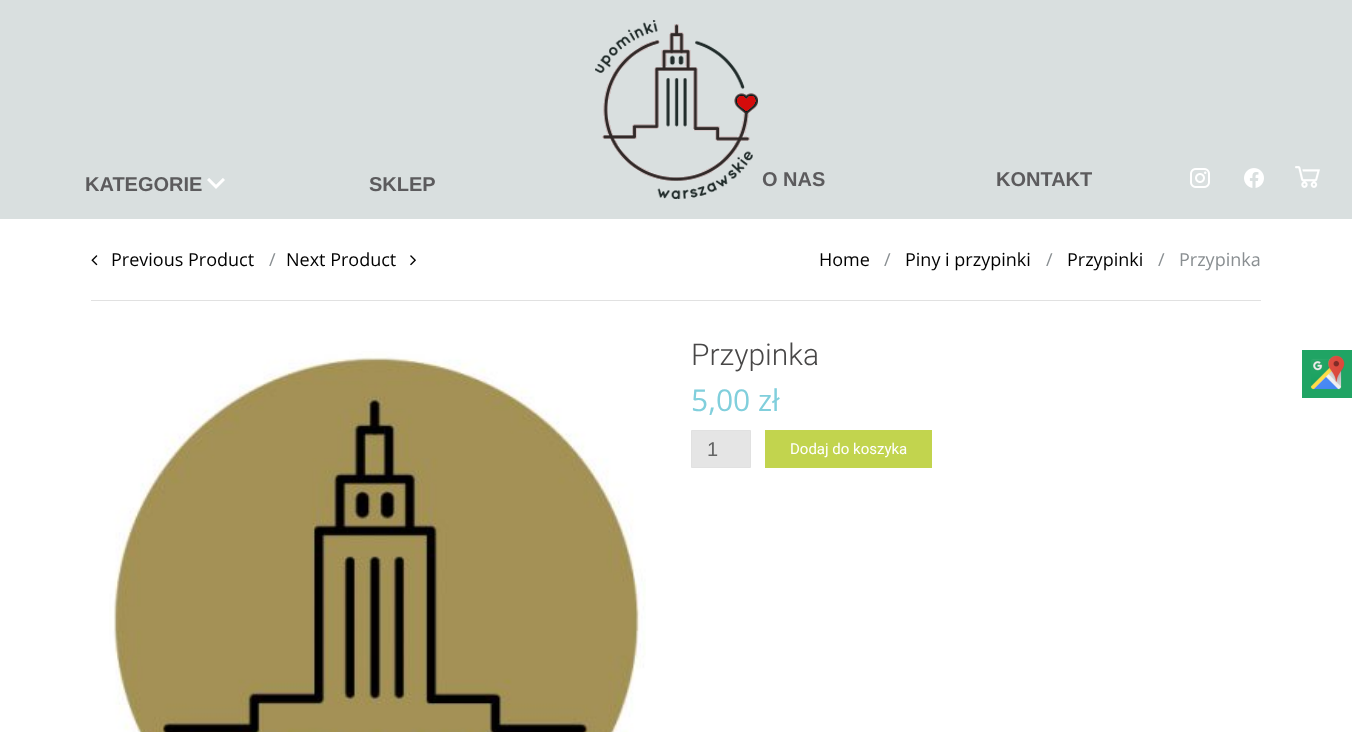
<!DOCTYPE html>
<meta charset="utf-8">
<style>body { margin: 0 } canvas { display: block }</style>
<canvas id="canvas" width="1352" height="732"></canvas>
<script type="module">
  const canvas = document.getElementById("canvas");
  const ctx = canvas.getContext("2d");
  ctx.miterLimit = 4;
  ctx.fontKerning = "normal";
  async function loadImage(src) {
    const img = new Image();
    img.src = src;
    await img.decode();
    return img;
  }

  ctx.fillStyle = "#ffffff";
  ctx.fillRect(0, 0, 1352, 732);
  ctx.fillStyle = "#d9dfdf";
  ctx.fillRect(0, 0, 1352, 219);
  ctx.font = "bold 20px Liberation Sans";
  ctx.fillStyle = "#5c5b5d";
  ctx.fillText("KATEGORIE", 85, 191);
  ctx.drawImage(await loadImage("img1.png"), 207, 178, 18, 11);
  ctx.fillText("SKLEP", 369, 191);
  ctx.drawImage(await loadImage("img2.png"), 595, 20, 163, 179);
  ctx.fillText("O NAS", 762, 186);
  ctx.fillText("KONTAKT", 996, 186);
  ctx.drawImage(await loadImage("img3.png"), 1190, 168, 20, 20);
  ctx.drawImage(await loadImage("img4.png"), 1244, 168, 20, 20);
  ctx.drawImage(await loadImage("img5.png"), 1295, 166, 25, 22);
  ctx.fillStyle = "#e1e1e1";
  ctx.fillRect(91, 300, 1170, 1);
  ctx.drawImage(await loadImage("img6.png"), 91, 255, 7, 11);
  ctx.font = "18px Open Sans";
  ctx.fillStyle = "#000000";
  ctx.fillText("Previous Product", 111, 266);
  ctx.fillStyle = "#898e91";
  ctx.fillText("/", 269, 266);
  ctx.fillStyle = "#000000";
  ctx.fillText("Next Product", 286, 266);
  ctx.drawImage(await loadImage("img7.png"), 410, 255, 6, 11);
  ctx.fillText("Home", 819, 266);
  ctx.fillStyle = "#898e91";
  ctx.fillText("/", 884, 266);
  ctx.fillStyle = "#000000";
  ctx.fillText("Piny i przypinki", 905, 266);
  ctx.fillStyle = "#898e91";
  ctx.fillText("/", 1046, 266);
  ctx.fillStyle = "#000000";
  ctx.fillText("Przypinki", 1067, 266);
  ctx.fillStyle = "#898e91";
  ctx.fillText("/", 1158, 266);
  ctx.fillText("Przypinka", 1179, 266);
  ctx.drawImage(await loadImage("img8.png"), 109, 351, 537, 381);
  ctx.font = "300 30px Roboto";
  ctx.fillStyle = "#484747";
  ctx.fillText("Przypinka", 691, 365);
  ctx.font = "30px Open Sans";
  ctx.fillStyle = "#81cfdc";
  ctx.fillText("5,00 zł", 691, 411);
  ctx.fillStyle = "#e5e5e5";
  ctx.beginPath();
  ctx.rect(691.5, 430.5, 59, 37);
  ctx.fill();
  ctx.strokeStyle = "#e1e1e1";
  ctx.stroke();
  ctx.font = "20px Liberation Sans";
  ctx.fillStyle = "#646565";
  ctx.fillText("1", 707, 456);
  ctx.fillStyle = "#c2d44e";
  ctx.fillRect(765, 430, 167, 38);
  ctx.font = "15px Roboto";
  ctx.fillStyle = "#ffffff";
  ctx.fillText("Dodaj do koszyka", 790, 454);
  ctx.fillStyle = "#20a464";
  ctx.fillRect(1302, 350, 50, 48);
  ctx.drawImage(await loadImage("img9.png"), 1310, 355, 35, 35);
</script>
